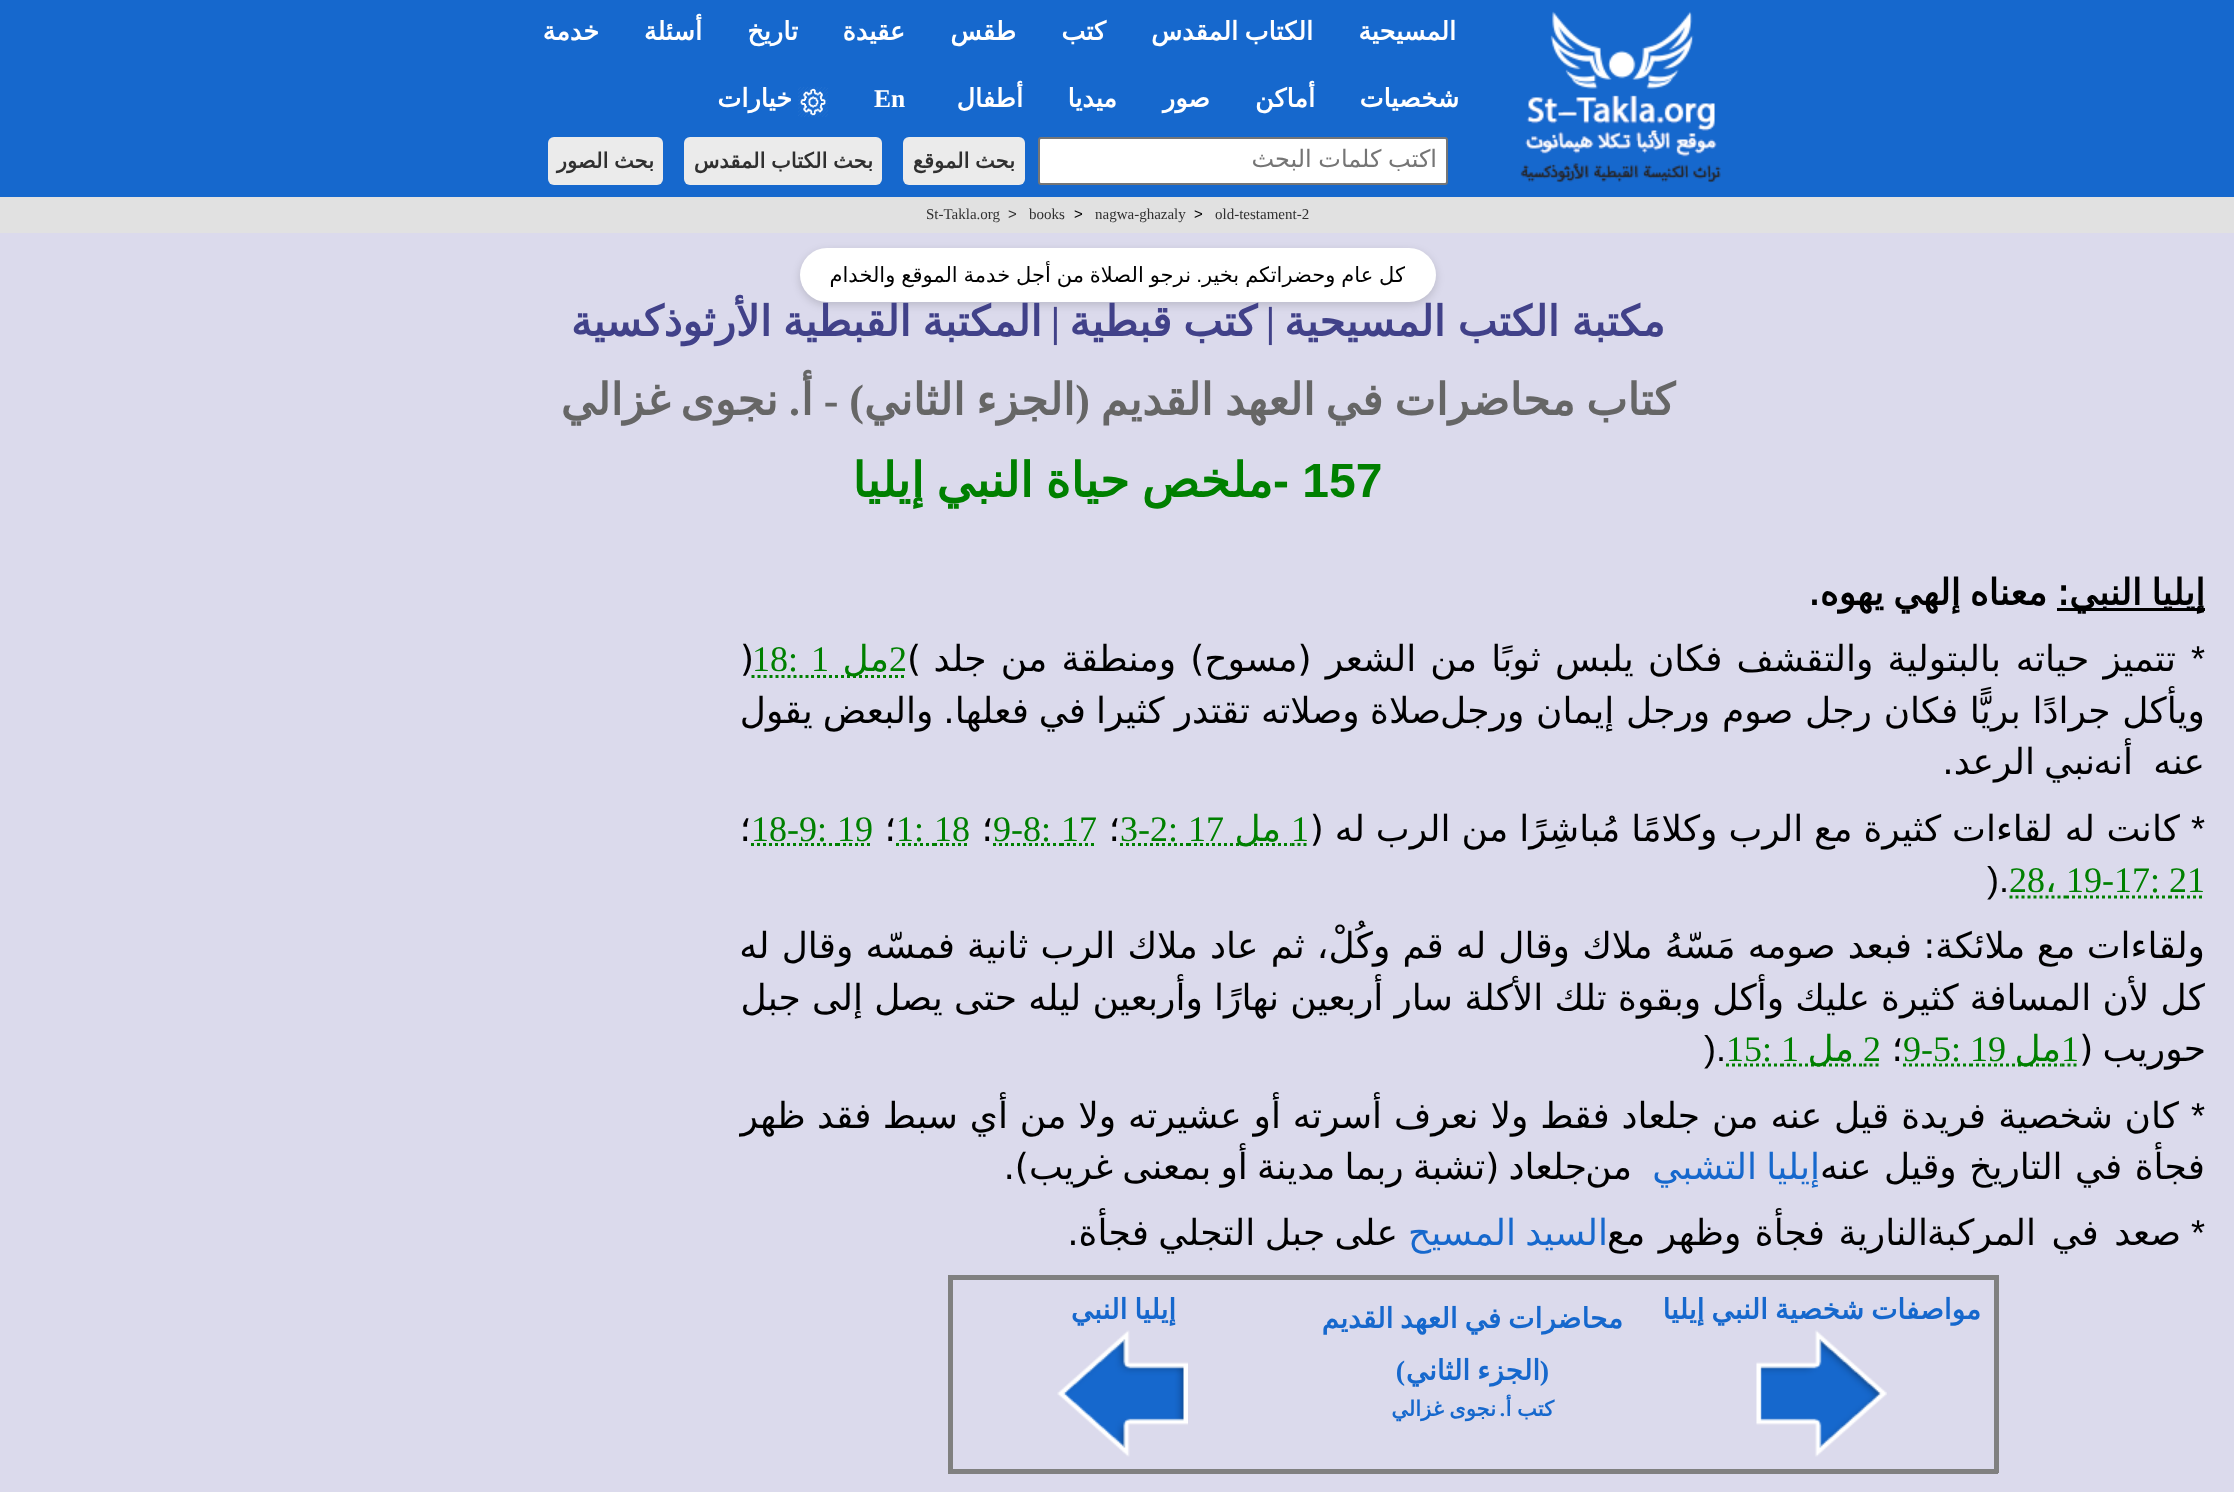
<!DOCTYPE html>
<meta charset="utf-8">
<style>body { margin: 0 } canvas { display: block }</style>
<canvas id="canvas" width="2234" height="1492"></canvas>
<script type="module">
  const canvas = document.getElementById("canvas");
  const ctx = canvas.getContext("2d");
  ctx.miterLimit = 4;
  ctx.fontKerning = "normal";
  async function loadImage(src) {
    const img = new Image();
    img.src = src;
    await img.decode();
    return img;
  }

  ctx.fillStyle = "#dbdaec";
  ctx.fillRect(0, 0, 2234, 1492);
  ctx.fillStyle = "#1668cd";
  ctx.fillRect(0, 0, 2234, 197);
  ctx.drawImage(await loadImage("img1.png"), 1520, 11, 201, 172);
  ctx.direction = "rtl";
  ctx.font = "bold 25.5px DejaVu Sans";
  ctx.fillStyle = "#ffffff";
  ctx.fillText("المسيحية", 1456, 40);
  ctx.fillText("الكتاب", 1313, 40);
  ctx.fillText("المقدس", 1238, 40);
  ctx.fillText("كتب", 1106, 40);
  ctx.fillText("طقس", 1016, 40);
  ctx.fillText("عقيدة", 905, 40);
  ctx.fillText("تاريخ", 798, 40);
  ctx.fillText("أسئلة", 702, 40);
  ctx.fillText("خدمة", 599, 40);
  ctx.fillText("شخصيات", 1459, 107);
  ctx.fillText("أماكن", 1315, 107);
  ctx.fillText("صور", 1210, 107);
  ctx.fillText("ميديا", 1117, 107);
  ctx.fillText("أطفال", 1023, 107);
  ctx.direction = "ltr";
  ctx.font = "bold 25.5px Liberation Serif";
  ctx.fillText("En", 874, 107);
  ctx.drawImage(await loadImage("img2.png"), 798, 87, 30, 30);
  ctx.direction = "rtl";
  ctx.font = "bold 25.5px DejaVu Sans";
  ctx.fillText("خيارات", 792, 107);
  ctx.beginPath();
  ctx.roundRect(1039, 138, 408, 46, 2);
  ctx.fill();
  ctx.strokeStyle = "#767676";
  ctx.lineWidth = 2;
  ctx.stroke();
  ctx.wordSpacing = "-1px";
  ctx.font = "24px DejaVu Sans";
  ctx.fillStyle = "#757575";
  ctx.fillText("اكتب كلمات البحث", 1437, 167);
  ctx.fillStyle = "#ebebeb";
  ctx.beginPath();
  ctx.roundRect(903, 137, 122, 48, 6);
  ctx.fill();
  ctx.font = "bold 21px DejaVu Sans";
  ctx.fillStyle = "#303030";
  ctx.fillText("بحث الموقع", 1015, 168);
  ctx.fillStyle = "#ebebeb";
  ctx.beginPath();
  ctx.roundRect(684, 137, 198, 48, 6);
  ctx.fill();
  ctx.fillStyle = "#303030";
  ctx.fillText("بحث الكتاب المقدس", 873, 168);
  ctx.fillStyle = "#ebebeb";
  ctx.beginPath();
  ctx.roundRect(548, 137, 115, 48, 6);
  ctx.fill();
  ctx.fillStyle = "#303030";
  ctx.fillText("بحث الصور", 654, 168);
  ctx.fillStyle = "#e1e1e1";
  ctx.fillRect(0, 197, 2234, 36);
  ctx.wordSpacing = "0px";
  ctx.direction = "ltr";
  ctx.font = "15px Liberation Serif";
  ctx.fillStyle = "#303030";
  ctx.fillText("old-testament-2", 1215, 219);
  ctx.font = "15px Liberation Sans";
  ctx.fillStyle = "#000000";
  ctx.fillText(">", 1194, 219);
  ctx.font = "15px Liberation Serif";
  ctx.fillStyle = "#303030";
  ctx.fillText("nagwa-ghazaly", 1095, 219);
  ctx.font = "15px Liberation Sans";
  ctx.fillStyle = "#000000";
  ctx.fillText(">", 1074, 219);
  ctx.font = "15px Liberation Serif";
  ctx.fillStyle = "#303030";
  ctx.fillText("books", 1029, 219);
  ctx.font = "15px Liberation Sans";
  ctx.fillText(">", 1008, 219);
  ctx.font = "15px Liberation Serif";
  ctx.fillText("St-Takla.org", 926, 219);
  ctx.fillStyle = "rgba(0, 0, 0, 0.15)";
  ctx.filter = "blur(4.5px)";
  ctx.beginPath();
  ctx.roundRect(800, 251, 636, 54, 27);
  ctx.fill();
  ctx.filter = "none";
  ctx.wordSpacing = "-2px";
  ctx.direction = "rtl";
  ctx.font = "bold 42px DejaVu Sans";
  ctx.fillStyle = "#414189";
  ctx.fillText("المكتبة القبطية الأرثوذكسية", 1042, 336);
  ctx.fillStyle = "#ffffff";
  ctx.beginPath();
  ctx.roundRect(800, 248, 636, 54, 27);
  ctx.fill();
  ctx.wordSpacing = "-0.75px";
  ctx.font = "21px DejaVu Sans";
  ctx.fillStyle = "#000000";
  ctx.fillText("كل عام وحضراتكم بخير", 1405, 282);
  ctx.wordSpacing = "0px";
  ctx.font = "21px Liberation Sans";
  ctx.fillText(".", 1202, 282);
  ctx.wordSpacing = "-0.75px";
  ctx.font = "21px DejaVu Sans";
  ctx.fillText("نرجو الصلاة من أجل خدمة الموقع والخدام", 1191, 282);
  ctx.wordSpacing = "-1px";
  ctx.font = "bold 42px DejaVu Sans";
  ctx.fillStyle = "#414189";
  ctx.fillText("مكتبة الكتب المسيحية", 1665, 336);
  ctx.wordSpacing = "0px";
  ctx.font = "bold 42px Liberation Serif";
  ctx.fillText("|", 1275, 336);
  ctx.wordSpacing = "-2px";
  ctx.font = "bold 42px DejaVu Sans";
  ctx.fillText("كتب قبطية", 1257, 336);
  ctx.wordSpacing = "0px";
  ctx.font = "bold 42px Liberation Serif";
  ctx.fillText("|", 1060, 336);
  ctx.font = "bold 44px DejaVu Sans";
  ctx.fillStyle = "#666666";
  ctx.fillText("كتاب", 1675, 415);
  ctx.fillText("محاضرات", 1575, 415);
  ctx.fillText("في", 1383, 415);
  ctx.fillText("العهد", 1315, 415);
  ctx.fillText("القديم", 1213, 415);
  ctx.font = "bold 44px Liberation Serif";
  ctx.fillText("(", 1090, 415);
  ctx.font = "bold 44px DejaVu Sans";
  ctx.fillText("الجزء", 1075, 415);
  ctx.fillText("الثاني", 965, 415);
  ctx.font = "bold 44px Liberation Serif";
  ctx.fillText(") -", 864, 415);
  ctx.font = "bold 44px DejaVu Sans";
  ctx.fillText("أ", 813, 415);
  ctx.font = "bold 44px Liberation Serif";
  ctx.fillText(".", 800, 415);
  ctx.font = "bold 44px DejaVu Sans";
  ctx.fillText("نجوى", 778, 415);
  ctx.fillText("غزالي", 670, 415);
  ctx.direction = "ltr";
  ctx.font = "bold 48px Liberation Sans";
  ctx.fillStyle = "#008000";
  ctx.fillText("- 157", 1273, 497);
  ctx.wordSpacing = "-3px";
  ctx.direction = "rtl";
  ctx.font = "bold 48px DejaVu Sans";
  ctx.fillText("ملخص حياة النبي إيليا", 1273, 497);
  ctx.fillStyle = "#000000";
  ctx.fillRect(2057, 608, 148, 3);
  ctx.wordSpacing = "-2px";
  ctx.font = "bold 36px DejaVu Sans";
  ctx.fillText("إيليا النبي:", 2205, 605);
  ctx.wordSpacing = "-2.25px";
  ctx.fillText("معناه إلهي يهوه.", 2047, 605);
  ctx.wordSpacing = "0px";
  ctx.direction = "ltr";
  ctx.font = "36px Liberation Sans";
  ctx.fillText("*", 2191, 671);
  ctx.wordSpacing = "3px";
  ctx.direction = "rtl";
  ctx.font = "36px DejaVu Sans";
  ctx.fillText("تتميز حياته", 2176, 671);
  ctx.wordSpacing = "2.75px";
  ctx.fillText("بالبتولية والتقشف فكان يلبس ثوبًا من الشعر (مسوح) ومنطقة من جلد", 2001, 671);
  ctx.wordSpacing = "0px";
  ctx.direction = "ltr";
  ctx.fillText("(", 907, 671);
  ctx.font = "36px Liberation Serif";
  ctx.fillStyle = "#008000";
  ctx.fillText("2", 889, 671);
  ctx.beginPath();
  ctx.moveTo(829, 676.5);
  ctx.lineTo(889, 676.5);
  ctx.strokeStyle = "#008000";
  ctx.lineWidth = 3;
  ctx.setLineDash([3, 3]);
  ctx.stroke();
  ctx.direction = "rtl";
  ctx.font = "36px DejaVu Sans";
  ctx.fillText("مل", 889, 671);
  ctx.beginPath();
  ctx.moveTo(889, 676.5);
  ctx.lineTo(892, 676.5);
  ctx.moveTo(895, 676.5);
  ctx.lineTo(898, 676.5);
  ctx.moveTo(901, 676.5);
  ctx.lineTo(904, 676.5);
  ctx.setLineDash([]);
  ctx.stroke();
  ctx.direction = "ltr";
  ctx.font = "36px Liberation Serif";
  ctx.fillText("1", 811, 671);
  ctx.beginPath();
  ctx.moveTo(811, 676.5);
  ctx.lineTo(814, 676.5);
  ctx.moveTo(817, 676.5);
  ctx.lineTo(820, 676.5);
  ctx.moveTo(823, 676.5);
  ctx.lineTo(826, 676.5);
  ctx.stroke();
  ctx.fillText("18:", 752, 671);
  ctx.beginPath();
  ctx.moveTo(751.5, 676.5);
  ctx.lineTo(787.5, 676.5);
  ctx.setLineDash([3, 3]);
  ctx.stroke();
  ctx.beginPath();
  ctx.moveTo(787.5, 676.5);
  ctx.lineTo(811, 676.5);
  ctx.stroke();
  ctx.font = "36px DejaVu Sans";
  ctx.fillStyle = "#000000";
  ctx.fillText(")", 740, 671);
  ctx.wordSpacing = "0.25px";
  ctx.direction = "rtl";
  ctx.fillText("ويأكل جرادًا بريًّا فكان رجل صوم ورجل إيمان ورجل", 2205, 723);
  ctx.wordSpacing = "-1px";
  ctx.fillText("صلاة وصلاته", 1441, 723);
  ctx.wordSpacing = "-1.5px";
  ctx.fillText("تقتدر كثيرا في فعلها. والبعض يقول", 1250, 723);
  ctx.wordSpacing = "9px";
  ctx.fillText("عنه أنه", 2205, 774);
  ctx.wordSpacing = "-2.25px";
  ctx.fillText("نبي الرعد.", 2095, 774);
  ctx.wordSpacing = "0px";
  ctx.direction = "ltr";
  ctx.font = "36px Liberation Sans";
  ctx.fillText("*", 2191, 841);
  ctx.direction = "rtl";
  ctx.font = "36px DejaVu Sans";
  ctx.fillText("كانت له", 2180, 841);
  ctx.wordSpacing = "-0.5px";
  ctx.fillText("لقاءات كثيرة مع الرب وكلامًا مُباشِرًا من الرب له (", 2053, 841);
  ctx.wordSpacing = "0px";
  ctx.direction = "ltr";
  ctx.font = "36px Liberation Serif";
  ctx.fillStyle = "#008000";
  ctx.fillText("1", 1291, 841);
  ctx.beginPath();
  ctx.moveTo(1224, 844.5);
  ctx.lineTo(1291.5, 844.5);
  ctx.stroke();
  ctx.beginPath();
  ctx.moveTo(1291.5, 844.5);
  ctx.lineTo(1294.5, 844.5);
  ctx.moveTo(1297.5, 844.5);
  ctx.lineTo(1300.5, 844.5);
  ctx.moveTo(1303.5, 844.5);
  ctx.lineTo(1306.5, 844.5);
  ctx.setLineDash([]);
  ctx.stroke();
  ctx.direction = "rtl";
  ctx.font = "36px DejaVu Sans";
  ctx.fillText("مل", 1281, 841);
  ctx.direction = "ltr";
  ctx.font = "36px Liberation Serif";
  ctx.fillText("17", 1188, 841);
  ctx.beginPath();
  ctx.moveTo(1188, 844.5);
  ctx.lineTo(1224, 844.5);
  ctx.setLineDash([3, 3]);
  ctx.stroke();
  ctx.fillText("3-2:", 1120, 841);
  ctx.beginPath();
  ctx.moveTo(1120, 844.5);
  ctx.lineTo(1123, 844.5);
  ctx.moveTo(1126, 844.5);
  ctx.lineTo(1129, 844.5);
  ctx.moveTo(1132, 844.5);
  ctx.lineTo(1135, 844.5);
  ctx.setLineDash([]);
  ctx.stroke();
  ctx.beginPath();
  ctx.moveTo(1138, 844.5);
  ctx.lineTo(1141, 844.5);
  ctx.moveTo(1144, 844.5);
  ctx.lineTo(1147, 844.5);
  ctx.moveTo(1150, 844.5);
  ctx.lineTo(1153, 844.5);
  ctx.moveTo(1156, 844.5);
  ctx.lineTo(1159, 844.5);
  ctx.moveTo(1162, 844.5);
  ctx.lineTo(1165, 844.5);
  ctx.moveTo(1168, 844.5);
  ctx.lineTo(1171, 844.5);
  ctx.moveTo(1174, 844.5);
  ctx.lineTo(1177, 844.5);
  ctx.moveTo(1180, 844.5);
  ctx.lineTo(1183, 844.5);
  ctx.moveTo(1186, 844.5);
  ctx.lineTo(1188, 844.5);
  ctx.stroke();
  ctx.direction = "rtl";
  ctx.font = "36px DejaVu Sans";
  ctx.fillStyle = "#000000";
  ctx.fillText("؛", 1120, 841);
  ctx.direction = "ltr";
  ctx.font = "36px Liberation Serif";
  ctx.fillStyle = "#008000";
  ctx.fillText("17", 1061, 841);
  ctx.beginPath();
  ctx.moveTo(1061, 844.5);
  ctx.lineTo(1097, 844.5);
  ctx.setLineDash([3, 3]);
  ctx.stroke();
  ctx.fillText("9-8:", 993, 841);
  ctx.beginPath();
  ctx.moveTo(993, 844.5);
  ctx.lineTo(996, 844.5);
  ctx.moveTo(999, 844.5);
  ctx.lineTo(1002, 844.5);
  ctx.moveTo(1005, 844.5);
  ctx.lineTo(1008, 844.5);
  ctx.setLineDash([]);
  ctx.stroke();
  ctx.beginPath();
  ctx.moveTo(1011, 844.5);
  ctx.lineTo(1014, 844.5);
  ctx.moveTo(1017, 844.5);
  ctx.lineTo(1020, 844.5);
  ctx.moveTo(1023, 844.5);
  ctx.lineTo(1026, 844.5);
  ctx.moveTo(1029, 844.5);
  ctx.lineTo(1032, 844.5);
  ctx.moveTo(1035, 844.5);
  ctx.lineTo(1038, 844.5);
  ctx.moveTo(1041, 844.5);
  ctx.lineTo(1044, 844.5);
  ctx.moveTo(1047, 844.5);
  ctx.lineTo(1050, 844.5);
  ctx.moveTo(1053, 844.5);
  ctx.lineTo(1056, 844.5);
  ctx.moveTo(1059, 844.5);
  ctx.lineTo(1061, 844.5);
  ctx.stroke();
  ctx.direction = "rtl";
  ctx.font = "36px DejaVu Sans";
  ctx.fillStyle = "#000000";
  ctx.fillText("؛", 993, 841);
  ctx.direction = "ltr";
  ctx.font = "36px Liberation Serif";
  ctx.fillStyle = "#008000";
  ctx.fillText("18", 934, 841);
  ctx.beginPath();
  ctx.moveTo(934, 844.5);
  ctx.lineTo(970, 844.5);
  ctx.setLineDash([3, 3]);
  ctx.stroke();
  ctx.fillText("1:", 896, 841);
  ctx.beginPath();
  ctx.moveTo(896, 844.5);
  ctx.lineTo(899, 844.5);
  ctx.moveTo(902, 844.5);
  ctx.lineTo(905, 844.5);
  ctx.moveTo(908, 844.5);
  ctx.lineTo(911, 844.5);
  ctx.setLineDash([]);
  ctx.stroke();
  ctx.beginPath();
  ctx.moveTo(914, 844.5);
  ctx.lineTo(917, 844.5);
  ctx.moveTo(920, 844.5);
  ctx.lineTo(923, 844.5);
  ctx.moveTo(926, 844.5);
  ctx.lineTo(929, 844.5);
  ctx.moveTo(932, 844.5);
  ctx.lineTo(934, 844.5);
  ctx.stroke();
  ctx.direction = "rtl";
  ctx.font = "36px DejaVu Sans";
  ctx.fillStyle = "#000000";
  ctx.fillText("؛", 896, 841);
  ctx.direction = "ltr";
  ctx.font = "36px Liberation Serif";
  ctx.fillStyle = "#008000";
  ctx.fillText("19", 837, 841);
  ctx.beginPath();
  ctx.moveTo(837, 844.5);
  ctx.lineTo(873, 844.5);
  ctx.setLineDash([3, 3]);
  ctx.stroke();
  ctx.fillText("18-9:", 751, 841);
  ctx.beginPath();
  ctx.moveTo(751, 844.5);
  ctx.lineTo(787, 844.5);
  ctx.stroke();
  ctx.beginPath();
  ctx.moveTo(787, 844.5);
  ctx.lineTo(790, 844.5);
  ctx.moveTo(793, 844.5);
  ctx.lineTo(796, 844.5);
  ctx.moveTo(799, 844.5);
  ctx.lineTo(802, 844.5);
  ctx.moveTo(805, 844.5);
  ctx.lineTo(808, 844.5);
  ctx.moveTo(811, 844.5);
  ctx.lineTo(814, 844.5);
  ctx.moveTo(817, 844.5);
  ctx.lineTo(820, 844.5);
  ctx.moveTo(823, 844.5);
  ctx.lineTo(826, 844.5);
  ctx.moveTo(829, 844.5);
  ctx.lineTo(832, 844.5);
  ctx.moveTo(835, 844.5);
  ctx.lineTo(837, 844.5);
  ctx.setLineDash([]);
  ctx.stroke();
  ctx.direction = "rtl";
  ctx.font = "36px DejaVu Sans";
  ctx.fillStyle = "#000000";
  ctx.fillText("؛", 751, 841);
  ctx.direction = "ltr";
  ctx.font = "36px Liberation Serif";
  ctx.fillStyle = "#008000";
  ctx.fillText("19-17: 21", 2066, 892);
  ctx.beginPath();
  ctx.moveTo(2102, 897);
  ctx.lineTo(2105, 897);
  ctx.moveTo(2108, 897);
  ctx.lineTo(2111, 897);
  ctx.stroke();
  ctx.beginPath();
  ctx.moveTo(2114, 897);
  ctx.lineTo(2150, 897);
  ctx.setLineDash([3, 3]);
  ctx.stroke();
  ctx.beginPath();
  ctx.moveTo(2150, 897);
  ctx.lineTo(2153, 897);
  ctx.moveTo(2156, 897);
  ctx.lineTo(2159, 897);
  ctx.moveTo(2162, 897);
  ctx.lineTo(2165, 897);
  ctx.moveTo(2168, 897);
  ctx.lineTo(2169, 897);
  ctx.setLineDash([]);
  ctx.stroke();
  ctx.beginPath();
  ctx.moveTo(2169, 897);
  ctx.lineTo(2205, 897);
  ctx.setLineDash([3, 3]);
  ctx.stroke();
  ctx.font = "36px DejaVu Sans";
  ctx.fillText("،", 2045, 892);
  ctx.beginPath();
  ctx.moveTo(2009.5, 897);
  ctx.lineTo(2045.5, 897);
  ctx.stroke();
  ctx.beginPath();
  ctx.moveTo(2045.5, 897);
  ctx.lineTo(2048.5, 897);
  ctx.moveTo(2051.5, 897);
  ctx.lineTo(2054.5, 897);
  ctx.moveTo(2057.5, 897);
  ctx.lineTo(2060.5, 897);
  ctx.moveTo(2063.5, 897);
  ctx.lineTo(2066, 897);
  ctx.setLineDash([]);
  ctx.stroke();
  ctx.beginPath();
  ctx.moveTo(2066, 897);
  ctx.lineTo(2102, 897);
  ctx.setLineDash([3, 3]);
  ctx.stroke();
  ctx.font = "36px Liberation Serif";
  ctx.fillText("28", 2009, 892);
  ctx.font = "36px Liberation Sans";
  ctx.fillStyle = "#000000";
  ctx.fillText(").", 1987, 892);
  ctx.direction = "rtl";
  ctx.font = "36px DejaVu Sans";
  ctx.fillText("ولقاءات مع ملائكة:", 2205, 958);
  ctx.wordSpacing = "0.75px";
  ctx.fillText("فبعد صومه مَسّهُ ملاك وقال له قم وكُلْ، ثم عاد ملاك الرب ثانية", 1912, 958);
  ctx.fillText("فمسّه وقال له", 955, 958);
  ctx.wordSpacing = "-0.25px";
  ctx.fillText("كل لأن المسافة كثيرة عليك وأكل وبقوة تلك الأكلة", 2205, 1010);
  ctx.fillText("سار أربعين نهارًا وأربعين ليله حتى يصل إلى جبل", 1453, 1010);
  ctx.wordSpacing = "-2.25px";
  ctx.fillText("حوريب (", 2206, 1061);
  ctx.wordSpacing = "0px";
  ctx.direction = "ltr";
  ctx.font = "36px Liberation Serif";
  ctx.fillStyle = "#008000";
  ctx.fillText("1", 2061, 1061);
  ctx.beginPath();
  ctx.moveTo(2006, 1065);
  ctx.lineTo(2061.5, 1065);
  ctx.stroke();
  ctx.direction = "rtl";
  ctx.font = "36px DejaVu Sans";
  ctx.fillText("مل", 2061, 1061);
  ctx.beginPath();
  ctx.moveTo(2061.5, 1065);
  ctx.lineTo(2064.5, 1065);
  ctx.moveTo(2067.5, 1065);
  ctx.lineTo(2070.5, 1065);
  ctx.moveTo(2073.5, 1065);
  ctx.lineTo(2076.5, 1065);
  ctx.setLineDash([]);
  ctx.stroke();
  ctx.direction = "ltr";
  ctx.font = "36px Liberation Serif";
  ctx.fillText("9-5: 19", 1903, 1061);
  ctx.beginPath();
  ctx.moveTo(1903, 1065);
  ctx.lineTo(1906, 1065);
  ctx.moveTo(1909, 1065);
  ctx.lineTo(1912, 1065);
  ctx.moveTo(1915, 1065);
  ctx.lineTo(1918, 1065);
  ctx.stroke();
  ctx.beginPath();
  ctx.moveTo(1921, 1065);
  ctx.lineTo(1924, 1065);
  ctx.moveTo(1927, 1065);
  ctx.lineTo(1930, 1065);
  ctx.moveTo(1933, 1065);
  ctx.lineTo(1936, 1065);
  ctx.moveTo(1939, 1065);
  ctx.lineTo(1942, 1065);
  ctx.moveTo(1945, 1065);
  ctx.lineTo(1948, 1065);
  ctx.moveTo(1951, 1065);
  ctx.lineTo(1954, 1065);
  ctx.moveTo(1957, 1065);
  ctx.lineTo(1960, 1065);
  ctx.moveTo(1963, 1065);
  ctx.lineTo(1966, 1065);
  ctx.moveTo(1969, 1065);
  ctx.lineTo(1970, 1065);
  ctx.stroke();
  ctx.beginPath();
  ctx.moveTo(1970, 1065);
  ctx.lineTo(2006, 1065);
  ctx.setLineDash([3, 3]);
  ctx.stroke();
  ctx.direction = "rtl";
  ctx.font = "36px DejaVu Sans";
  ctx.fillStyle = "#000000";
  ctx.fillText("؛", 1903, 1061);
  ctx.direction = "ltr";
  ctx.font = "36px Liberation Serif";
  ctx.fillStyle = "#008000";
  ctx.fillText("2", 1863, 1061);
  ctx.beginPath();
  ctx.moveTo(1863.5, 1065);
  ctx.lineTo(1866.5, 1065);
  ctx.moveTo(1869.5, 1065);
  ctx.lineTo(1872.5, 1065);
  ctx.moveTo(1875.5, 1065);
  ctx.lineTo(1878.5, 1065);
  ctx.setLineDash([]);
  ctx.stroke();
  ctx.beginPath();
  ctx.moveTo(1799, 1065);
  ctx.lineTo(1863.5, 1065);
  ctx.setLineDash([3, 3]);
  ctx.stroke();
  ctx.direction = "rtl";
  ctx.font = "36px DejaVu Sans";
  ctx.fillText("مل", 1854, 1061);
  ctx.direction = "ltr";
  ctx.font = "36px Liberation Serif";
  ctx.fillText("15: 1", 1726, 1061);
  ctx.beginPath();
  ctx.moveTo(1726, 1065);
  ctx.lineTo(1762, 1065);
  ctx.stroke();
  ctx.beginPath();
  ctx.moveTo(1762, 1065);
  ctx.lineTo(1765, 1065);
  ctx.moveTo(1768, 1065);
  ctx.lineTo(1771, 1065);
  ctx.moveTo(1774, 1065);
  ctx.lineTo(1777, 1065);
  ctx.moveTo(1780, 1065);
  ctx.lineTo(1781, 1065);
  ctx.moveTo(1781, 1065);
  ctx.lineTo(1784, 1065);
  ctx.moveTo(1787, 1065);
  ctx.lineTo(1790, 1065);
  ctx.moveTo(1793, 1065);
  ctx.lineTo(1796, 1065);
  ctx.setLineDash([]);
  ctx.stroke();
  ctx.font = "36px Liberation Sans";
  ctx.fillStyle = "#000000";
  ctx.fillText(").", 1704, 1061);
  ctx.fillText("*", 2191, 1128);
  ctx.direction = "rtl";
  ctx.font = "36px DejaVu Sans";
  ctx.fillText("كان شخصية", 2179, 1128);
  ctx.wordSpacing = "0.4px";
  ctx.fillText("فريدة قيل عنه من جلعاد فقط ولا نعرف أسرته أو عشيرته ولا من أي", 1986, 1128);
  ctx.wordSpacing = "0px";
  ctx.fillText("سبط فقد ظهر", 958, 1128);
  ctx.wordSpacing = "1px";
  ctx.fillText("فجأة في التاريخ وقيل عنه", 2205, 1179);
  ctx.wordSpacing = "0px";
  ctx.fillStyle = "#1668cd";
  ctx.fillText("إيليا", 1820, 1179);
  ctx.fillText("التشبي", 1757, 1179);
  ctx.fillStyle = "#000000";
  ctx.fillText("من", 1632, 1179);
  ctx.wordSpacing = "-2.25px";
  ctx.fillText("جلعاد (تشبة ربما مدينة أو بمعنى غريب).", 1587, 1179);
  ctx.wordSpacing = "0px";
  ctx.direction = "ltr";
  ctx.font = "36px Liberation Sans";
  ctx.fillText("*", 2191, 1245);
  ctx.wordSpacing = "4px";
  ctx.direction = "rtl";
  ctx.font = "36px DejaVu Sans";
  ctx.fillText("صعد في المركبة", 2181, 1245);
  ctx.wordSpacing = "2px";
  ctx.fillText("النارية فجأة وظهر مع", 1928, 1245);
  ctx.wordSpacing = "-2.25px";
  ctx.fillStyle = "#1668cd";
  ctx.fillText("السيد المسيح", 1608, 1245);
  ctx.wordSpacing = "-2px";
  ctx.fillStyle = "#000000";
  ctx.fillText("على جبل التجلي فجأة.", 1398, 1245);
  ctx.fillStyle = "#808080";
  ctx.fillRect(948, 1275, 1050, 5);
  ctx.fillRect(1994, 1275, 5, 198);
  ctx.fillRect(948, 1469, 1050, 5);
  ctx.fillRect(948, 1275, 5, 198);
  ctx.font = "bold 28px DejaVu Sans";
  ctx.fillStyle = "#1668cd";
  ctx.fillText("مواصفات شخصية النبي إيليا", 1981, 1319);
  ctx.drawImage(await loadImage("img3.png"), 1756, 1330, 131, 127);
  ctx.fillText("محاضرات في العهد القديم", 1623, 1328);
  ctx.wordSpacing = "0px";
  ctx.font = "bold 28px Liberation Serif";
  ctx.fillText("(", 1549, 1380);
  ctx.wordSpacing = "-2px";
  ctx.font = "bold 28px DejaVu Sans";
  ctx.fillText("الجزء الثاني", 1540, 1380);
  ctx.wordSpacing = "0px";
  ctx.font = "bold 28px Liberation Serif";
  ctx.fillText(")", 1405, 1380);
  ctx.wordSpacing = "-1px";
  ctx.font = "bold 21px DejaVu Sans";
  ctx.fillText("كتب أ", 1554, 1416);
  ctx.wordSpacing = "0px";
  ctx.font = "bold 21px Liberation Serif";
  ctx.fillText(".", 1505, 1416);
  ctx.wordSpacing = "-1px";
  ctx.font = "bold 21px DejaVu Sans";
  ctx.fillText("نجوى غزالي", 1496, 1416);
  ctx.wordSpacing = "-2px";
  ctx.font = "bold 28px DejaVu Sans";
  ctx.fillText("إيليا النبي", 1176, 1319);
  ctx.drawImage(await loadImage("img4.png"), 1057, 1330, 131, 127);
</script>
